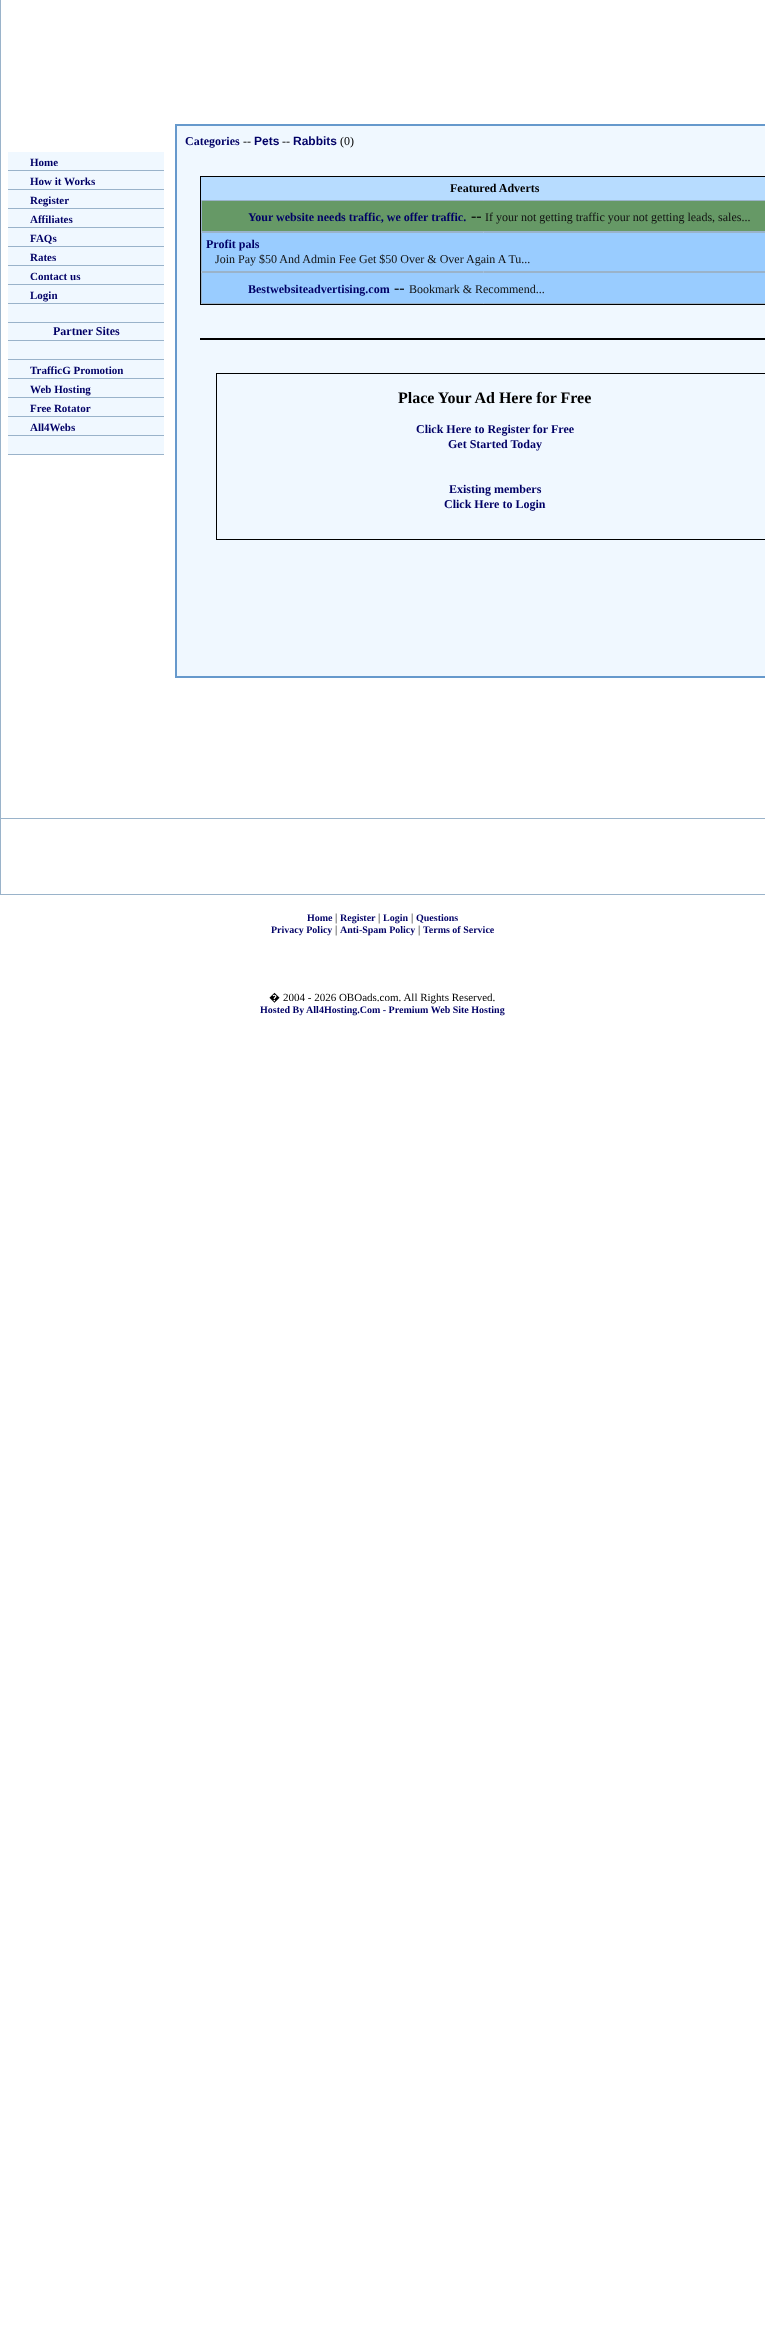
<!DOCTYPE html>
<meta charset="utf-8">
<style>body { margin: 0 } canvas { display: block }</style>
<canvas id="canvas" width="765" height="2327"></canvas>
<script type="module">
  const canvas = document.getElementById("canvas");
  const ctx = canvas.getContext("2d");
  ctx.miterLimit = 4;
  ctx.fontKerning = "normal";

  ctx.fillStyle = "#ffffff";
  ctx.fillRect(0, 0, 765, 2327);
  ctx.fillStyle = "#9ab3ca";
  ctx.fillRect(0, 0, 1, 818);
  ctx.fillStyle = "#f0f8ff";
  ctx.fillRect(8, 152, 156, 18);
  ctx.fillStyle = "#9ab3ca";
  ctx.fillRect(8, 170, 156, 1);
  ctx.font = "bold 11px Liberation Serif";
  ctx.fillStyle = "#000066";
  ctx.fillText("Home", 30, 166);
  ctx.fillStyle = "#f0f8ff";
  ctx.fillRect(8, 171, 156, 18);
  ctx.fillStyle = "#9ab3ca";
  ctx.fillRect(8, 189, 156, 1);
  ctx.fillStyle = "#000066";
  ctx.fillText("How it Works", 30, 185);
  ctx.fillStyle = "#f0f8ff";
  ctx.fillRect(8, 190, 156, 18);
  ctx.fillStyle = "#9ab3ca";
  ctx.fillRect(8, 208, 156, 1);
  ctx.fillStyle = "#000066";
  ctx.fillText("Register", 30, 204);
  ctx.fillStyle = "#f0f8ff";
  ctx.fillRect(8, 209, 156, 18);
  ctx.fillStyle = "#9ab3ca";
  ctx.fillRect(8, 227, 156, 1);
  ctx.fillStyle = "#000066";
  ctx.fillText("Affiliates", 30, 223);
  ctx.fillStyle = "#f0f8ff";
  ctx.fillRect(8, 228, 156, 18);
  ctx.fillStyle = "#9ab3ca";
  ctx.fillRect(8, 246, 156, 1);
  ctx.fillStyle = "#000066";
  ctx.fillText("FAQs", 30, 242);
  ctx.fillStyle = "#f0f8ff";
  ctx.fillRect(8, 247, 156, 18);
  ctx.fillStyle = "#9ab3ca";
  ctx.fillRect(8, 265, 156, 1);
  ctx.fillStyle = "#000066";
  ctx.fillText("Rates", 30, 261);
  ctx.fillStyle = "#f0f8ff";
  ctx.fillRect(8, 266, 156, 18);
  ctx.fillStyle = "#9ab3ca";
  ctx.fillRect(8, 284, 156, 1);
  ctx.fillStyle = "#000066";
  ctx.fillText("Contact us", 30, 280);
  ctx.fillStyle = "#f0f8ff";
  ctx.fillRect(8, 285, 156, 18);
  ctx.fillStyle = "#9ab3ca";
  ctx.fillRect(8, 303, 156, 1);
  ctx.fillStyle = "#000066";
  ctx.fillText("Login", 30, 299);
  ctx.fillStyle = "#f0f8ff";
  ctx.fillRect(8, 304, 156, 18);
  ctx.fillStyle = "#9ab3ca";
  ctx.fillRect(8, 322, 156, 1);
  ctx.fillStyle = "#f0f8ff";
  ctx.fillRect(8, 323, 156, 17);
  ctx.fillStyle = "#9ab3ca";
  ctx.fillRect(8, 340, 156, 1);
  ctx.font = "bold 12px Liberation Serif";
  ctx.fillStyle = "#000066";
  ctx.fillText("Partner Sites", 53, 335);
  ctx.fillStyle = "#f0f8ff";
  ctx.fillRect(8, 341, 156, 18);
  ctx.fillStyle = "#9ab3ca";
  ctx.fillRect(8, 359, 156, 1);
  ctx.fillStyle = "#f0f8ff";
  ctx.fillRect(8, 360, 156, 18);
  ctx.fillStyle = "#9ab3ca";
  ctx.fillRect(8, 378, 156, 1);
  ctx.font = "bold 11px Liberation Serif";
  ctx.fillStyle = "#000066";
  ctx.fillText("TrafficG Promotion", 30, 374);
  ctx.fillStyle = "#f0f8ff";
  ctx.fillRect(8, 379, 156, 18);
  ctx.fillStyle = "#9ab3ca";
  ctx.fillRect(8, 397, 156, 1);
  ctx.fillStyle = "#000066";
  ctx.fillText("Web Hosting", 30, 393);
  ctx.fillStyle = "#f0f8ff";
  ctx.fillRect(8, 398, 156, 18);
  ctx.fillStyle = "#9ab3ca";
  ctx.fillRect(8, 416, 156, 1);
  ctx.fillStyle = "#000066";
  ctx.fillText("Free Rotator", 30, 412);
  ctx.fillStyle = "#f0f8ff";
  ctx.fillRect(8, 417, 156, 18);
  ctx.fillStyle = "#9ab3ca";
  ctx.fillRect(8, 435, 156, 1);
  ctx.fillStyle = "#000066";
  ctx.fillText("All4Webs", 30, 431);
  ctx.fillStyle = "#f0f8ff";
  ctx.fillRect(8, 436, 156, 18);
  ctx.fillStyle = "#9ab3ca";
  ctx.fillRect(8, 454, 156, 1);
  ctx.fillStyle = "#f0f8ff";
  ctx.beginPath();
  ctx.rect(176, 125, 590, 552);
  ctx.fill();
  ctx.strokeStyle = "#6699cc";
  ctx.lineWidth = 2;
  ctx.stroke();
  ctx.font = "bold 12px Liberation Serif";
  ctx.fillStyle = "#000066";
  ctx.fillText("Categories", 185, 145);
  ctx.font = "12px Liberation Serif";
  ctx.fillStyle = "#000000";
  ctx.fillText("--", 243, 145);
  ctx.font = "bold 12px Liberation Sans";
  ctx.fillStyle = "#000066";
  ctx.fillText("Pets", 254, 145);
  ctx.font = "12px Liberation Serif";
  ctx.fillStyle = "#000000";
  ctx.fillText("--", 282, 145);
  ctx.font = "bold 12px Liberation Sans";
  ctx.fillStyle = "#000066";
  ctx.fillText("Rabbits", 293, 145);
  ctx.font = "12px Liberation Serif";
  ctx.fillStyle = "#000000";
  ctx.fillText("(0)", 340, 145);
  ctx.strokeStyle = "#000000";
  ctx.lineWidth = 1;
  ctx.strokeRect(200.5, 176.5, 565, 128);
  ctx.fillStyle = "#b7dcff";
  ctx.fillRect(201, 177, 564, 23);
  ctx.font = "bold 12px Liberation Serif";
  ctx.fillStyle = "#000000";
  ctx.fillText("Featured Adverts", 450, 192);
  ctx.fillStyle = "#669966";
  ctx.beginPath();
  ctx.rect(201.5, 200.5, 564, 31);
  ctx.fill();
  ctx.strokeStyle = "#9ab3ca";
  ctx.stroke();
  ctx.fillStyle = "#000066";
  ctx.fillText("Your website needs traffic, we offer traffic.", 248, 221);
  ctx.font = "16px Liberation Serif";
  ctx.fillStyle = "#000000";
  ctx.fillText("--", 471, 221);
  ctx.font = "12px Liberation Serif";
  ctx.fillStyle = "#111111";
  ctx.fillText("If your not getting traffic your not getting leads, sales...", 485, 221);
  ctx.fillStyle = "#99ccff";
  ctx.beginPath();
  ctx.rect(201.5, 232.5, 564, 39);
  ctx.fill();
  ctx.stroke();
  ctx.font = "bold 12px Liberation Serif";
  ctx.fillStyle = "#000066";
  ctx.fillText("Profit pals", 206, 248);
  ctx.font = "12px Liberation Serif";
  ctx.fillStyle = "#111111";
  ctx.fillText("Join Pay $50 And Admin Fee Get $50 Over & Over Again A Tu...", 215, 263);
  ctx.fillStyle = "#99ccff";
  ctx.beginPath();
  ctx.rect(201.5, 272.5, 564, 31);
  ctx.fill();
  ctx.stroke();
  ctx.font = "bold 12px Liberation Serif";
  ctx.fillStyle = "#000066";
  ctx.fillText("Bestwebsiteadvertising.com", 248, 293);
  ctx.font = "16px Liberation Serif";
  ctx.fillStyle = "#000000";
  ctx.fillText("--", 394, 293);
  ctx.font = "12px Liberation Serif";
  ctx.fillStyle = "#111111";
  ctx.fillText("Bookmark & Recommend...", 409, 293);
  ctx.fillStyle = "#000000";
  ctx.fillRect(200, 338, 565, 2);
  ctx.strokeStyle = "#000000";
  ctx.strokeRect(216.5, 373.5, 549, 166);
  ctx.font = "bold 16px Liberation Serif";
  ctx.fillText("Place Your Ad Here for Free", 398, 403);
  ctx.font = "bold 12px Liberation Serif";
  ctx.fillStyle = "#000066";
  ctx.fillText("Click Here to Register for Free", 416, 433);
  ctx.fillText("Get Started Today", 448, 448);
  ctx.fillText("Existing members", 449, 493);
  ctx.fillText("Click Here to Login", 444, 508);
  ctx.strokeStyle = "#9ab3ca";
  ctx.strokeRect(0.5, 818.5, 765, 76);
  ctx.font = "bold 10px Liberation Serif";
  ctx.fillText("Home", 307, 921);
  ctx.font = "11px Liberation Serif";
  ctx.fillStyle = "#000000";
  ctx.fillText("|", 335, 921);
  ctx.font = "bold 10px Liberation Serif";
  ctx.fillStyle = "#000066";
  ctx.fillText("Register", 340, 921);
  ctx.font = "11px Liberation Serif";
  ctx.fillStyle = "#000000";
  ctx.fillText("|", 378, 921);
  ctx.font = "bold 10px Liberation Serif";
  ctx.fillStyle = "#000066";
  ctx.fillText("Login", 383, 921);
  ctx.font = "11px Liberation Serif";
  ctx.fillStyle = "#000000";
  ctx.fillText("|", 411, 921);
  ctx.font = "bold 10px Liberation Serif";
  ctx.fillStyle = "#000066";
  ctx.fillText("Questions", 416, 921);
  ctx.fillText("Privacy Policy", 271, 933);
  ctx.font = "11px Liberation Serif";
  ctx.fillStyle = "#000000";
  ctx.fillText("|", 335, 933);
  ctx.font = "bold 10px Liberation Serif";
  ctx.fillStyle = "#000066";
  ctx.fillText("Anti-Spam Policy", 340, 933);
  ctx.font = "11px Liberation Serif";
  ctx.fillStyle = "#000000";
  ctx.fillText("|", 418, 933);
  ctx.font = "bold 10px Liberation Serif";
  ctx.fillStyle = "#000066";
  ctx.fillText("Terms of Service", 423, 933);
  ctx.font = "11px Noto Sans";
  ctx.fillStyle = "#000000";
  ctx.fillText("�", 269, 1001);
  ctx.font = "11px Liberation Serif";
  ctx.fillText("2004 - 2026 OBOads.com. All Rights Reserved.", 283, 1001);
  ctx.font = "bold 10px Liberation Serif";
  ctx.fillStyle = "#000066";
  ctx.fillText("Hosted By All4Hosting.Com - Premium Web Site Hosting", 260, 1013);
</script>
